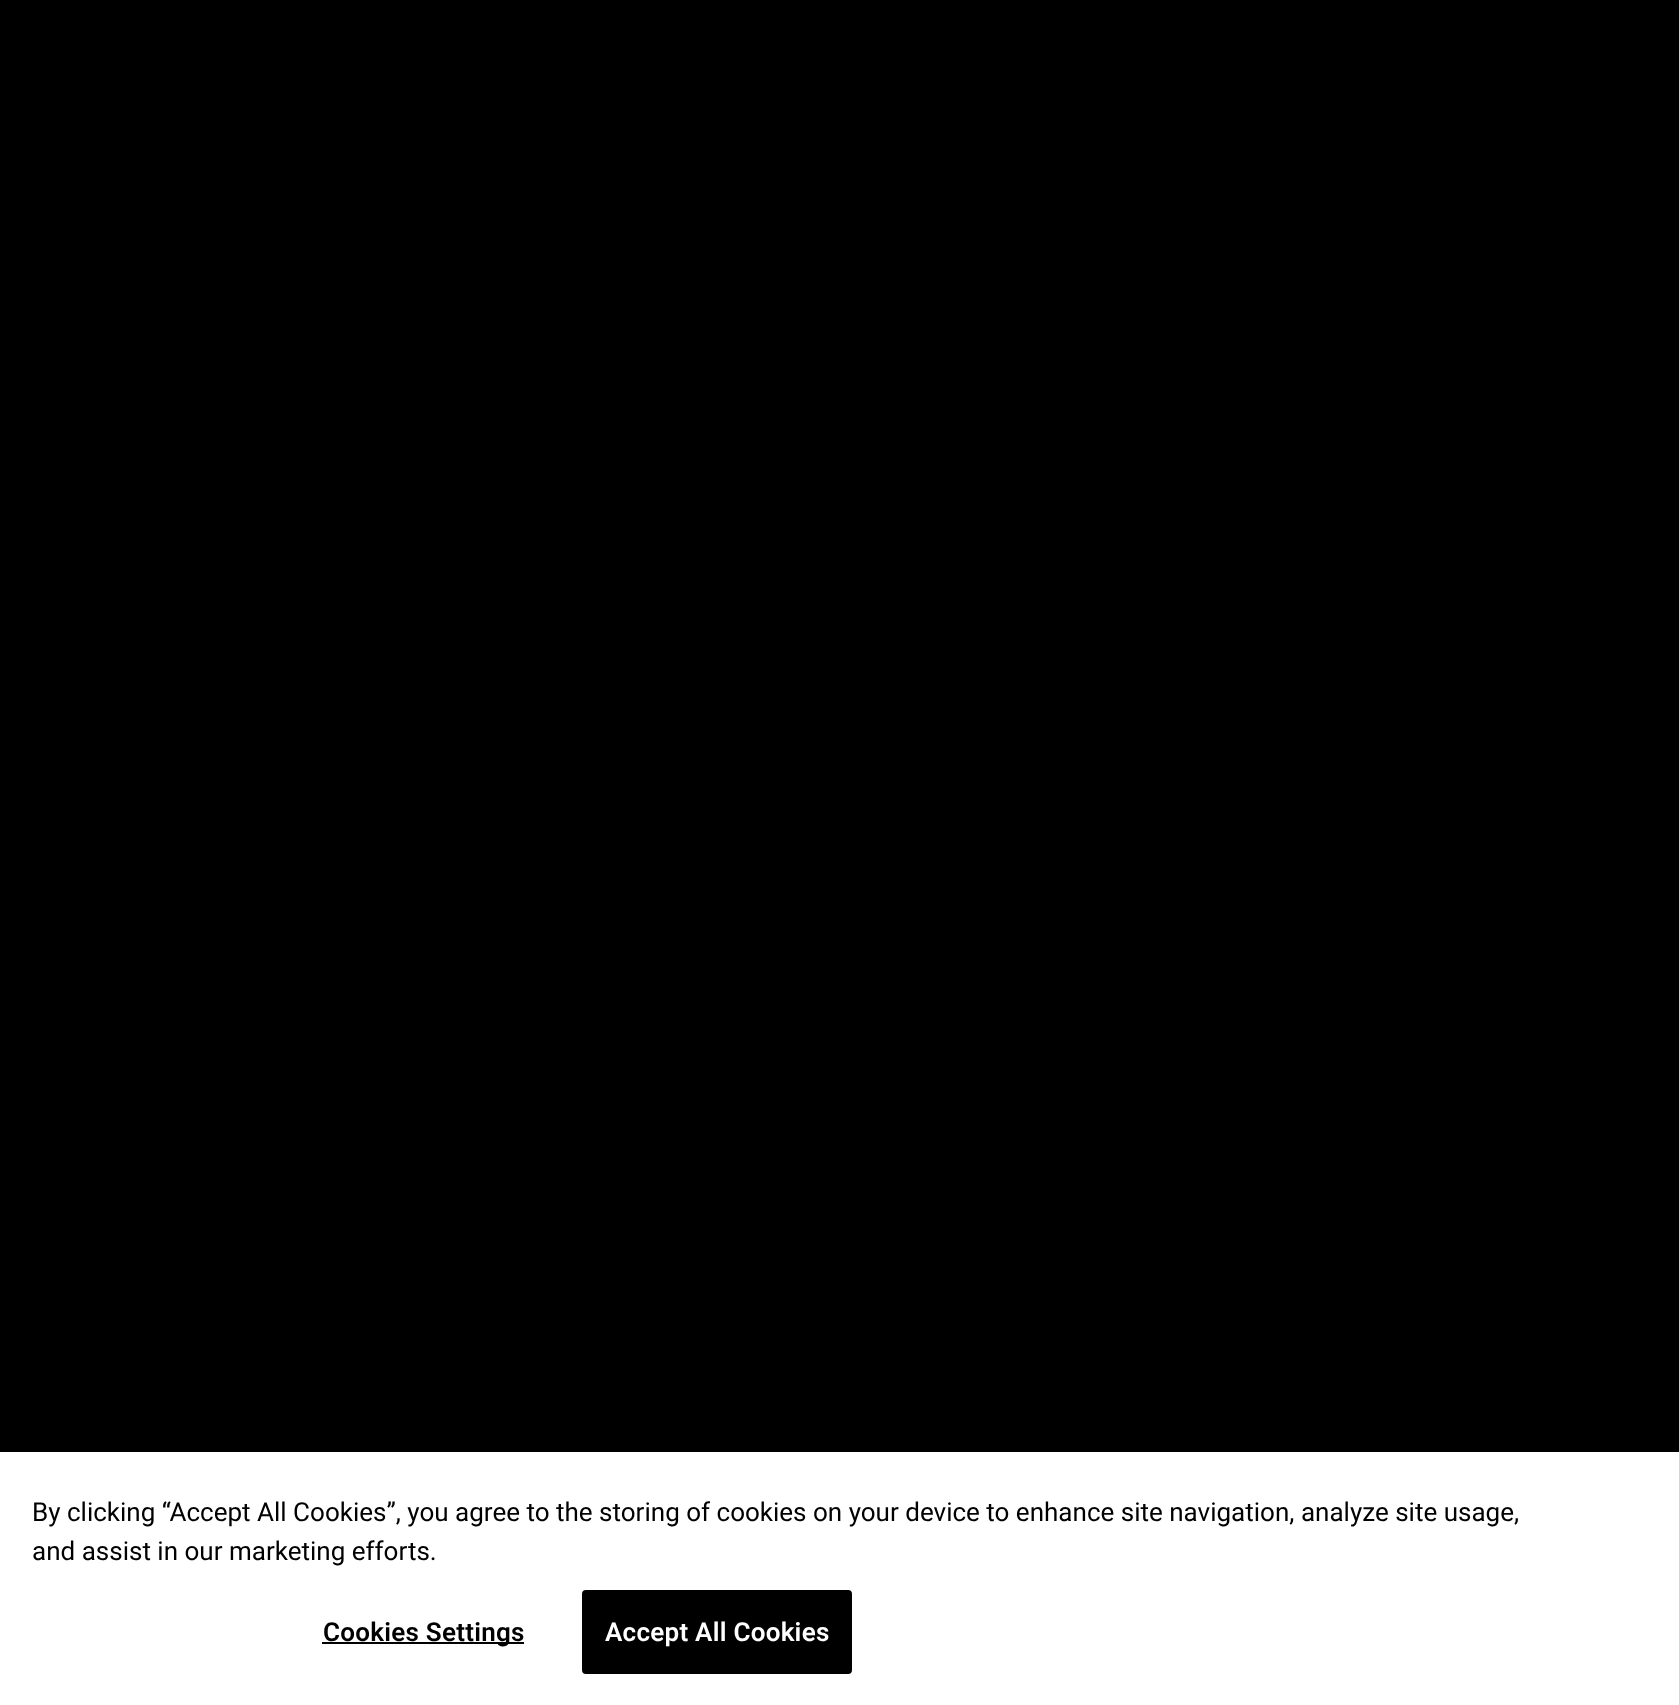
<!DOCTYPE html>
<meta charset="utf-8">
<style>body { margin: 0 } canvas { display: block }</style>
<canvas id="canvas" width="1679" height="1705"></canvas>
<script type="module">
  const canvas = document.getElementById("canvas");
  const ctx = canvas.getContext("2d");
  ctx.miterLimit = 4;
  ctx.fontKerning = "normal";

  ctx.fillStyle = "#000000";
  ctx.fillRect(0, 0, 1679, 1705);
  ctx.fillStyle = "#ffffff";
  ctx.fillRect(0, 1452, 1679, 253);
  ctx.font = "26.02px Roboto";
  ctx.fillStyle = "#000000";
  ctx.fillText("By clicking “Accept All Cookies”, you agree to the storing of cookies on your device to enhance site navigation, analyze site usage,", 32, 1521);
  ctx.fillText("and assist in our marketing efforts.", 32, 1560);
  ctx.fillRect(322, 1642, 202, 2);
  ctx.letterSpacing = "0.25px";
  ctx.font = "600 26.02px Roboto";
  ctx.fillText("Cookies Settings", 323, 1641);
  ctx.beginPath();
  ctx.roundRect(583, 1591, 268, 82, 3);
  ctx.fill();
  ctx.strokeStyle = "#000000";
  ctx.lineWidth = 2;
  ctx.stroke();
  ctx.fillStyle = "#ffffff";
  ctx.fillText("Accept All Cookies", 605, 1641);
</script>
